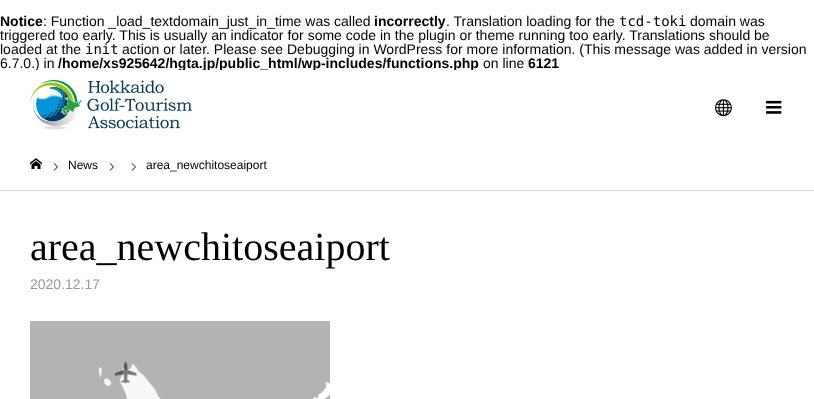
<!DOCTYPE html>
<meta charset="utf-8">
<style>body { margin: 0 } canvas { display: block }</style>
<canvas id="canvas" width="814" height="399"></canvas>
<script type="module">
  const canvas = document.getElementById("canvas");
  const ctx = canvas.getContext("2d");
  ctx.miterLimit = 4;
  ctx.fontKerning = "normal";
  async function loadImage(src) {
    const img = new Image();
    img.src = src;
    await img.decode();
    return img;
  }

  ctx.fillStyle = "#ffffff";
  ctx.fillRect(0, 0, 814, 399);
  ctx.font = "bold 14px Liberation Sans";
  ctx.fillStyle = "#000000";
  ctx.fillText("Notice", 0, 26);
  ctx.font = "14px Liberation Sans";
  ctx.fillText(": Function _load_textdomain_just_in_time was called", 43, 26);
  ctx.font = "bold 14px Liberation Sans";
  ctx.fillText("incorrectly", 374, 26);
  ctx.font = "14px Liberation Sans";
  ctx.fillText(". Translation loading for the", 446, 26);
  ctx.font = "14px DejaVu Sans Mono";
  ctx.fillText("tcd-toki", 619, 26);
  ctx.font = "14px Liberation Sans";
  ctx.fillText("domain was", 690, 26);
  ctx.fillText("triggered too early. This is usually an indicator for some code in the plugin or theme running too early. Translations should be", 0, 40);
  ctx.fillText("loaded at the", 0, 54);
  ctx.font = "14px DejaVu Sans Mono";
  ctx.fillText("init", 85, 54);
  ctx.font = "14px Liberation Sans";
  ctx.fillText("action or later. Please see Debugging in WordPress for more information. (This message was added in version", 122, 54);
  ctx.fillText("6.7.0.) in", 0, 68);
  ctx.font = "bold 14px Liberation Sans";
  ctx.fillText("/home/xs925642/hgta.jp/public_html/wp-includes/functions.php", 58, 68);
  ctx.font = "14px Liberation Sans";
  ctx.fillText("on line", 483, 68);
  ctx.font = "bold 14px Liberation Sans";
  ctx.fillText("6121", 528, 68);
  ctx.fillStyle = "#ffffff";
  ctx.fillRect(35, 70, 439, 1);
  ctx.drawImage(await loadImage("img1.png"), 30, 80, 162, 50);
  ctx.drawImage(await loadImage("img2.png"), 715, 99, 17, 18);
  ctx.drawImage(await loadImage("img3.png"), 766, 100, 16, 14);
  ctx.fillStyle = "#dddddd";
  ctx.fillRect(0, 190, 814, 1);
  ctx.drawImage(await loadImage("img4.png"), 30, 158, 12, 11);
  ctx.drawImage(await loadImage("img5.png"), 53, 163, 5, 8);
  ctx.font = "12px Liberation Sans";
  ctx.fillStyle = "#000000";
  ctx.fillText("News", 68, 169);
  ctx.drawImage(await loadImage("img5.png"), 109, 163, 5, 8);
  ctx.drawImage(await loadImage("img5.png"), 131, 163, 5, 8);
  ctx.fillText("area_newchitoseaiport", 146, 169);
  ctx.font = "40px Liberation Serif";
  ctx.fillText("area_newchitoseaiport", 30, 260);
  ctx.font = "14px Liberation Sans";
  ctx.fillStyle = "#999999";
  ctx.fillText("2020.12.17", 30, 289);
  ctx.drawImage(await loadImage("img6.png"), 30, 321, 300, 78);
</script>
